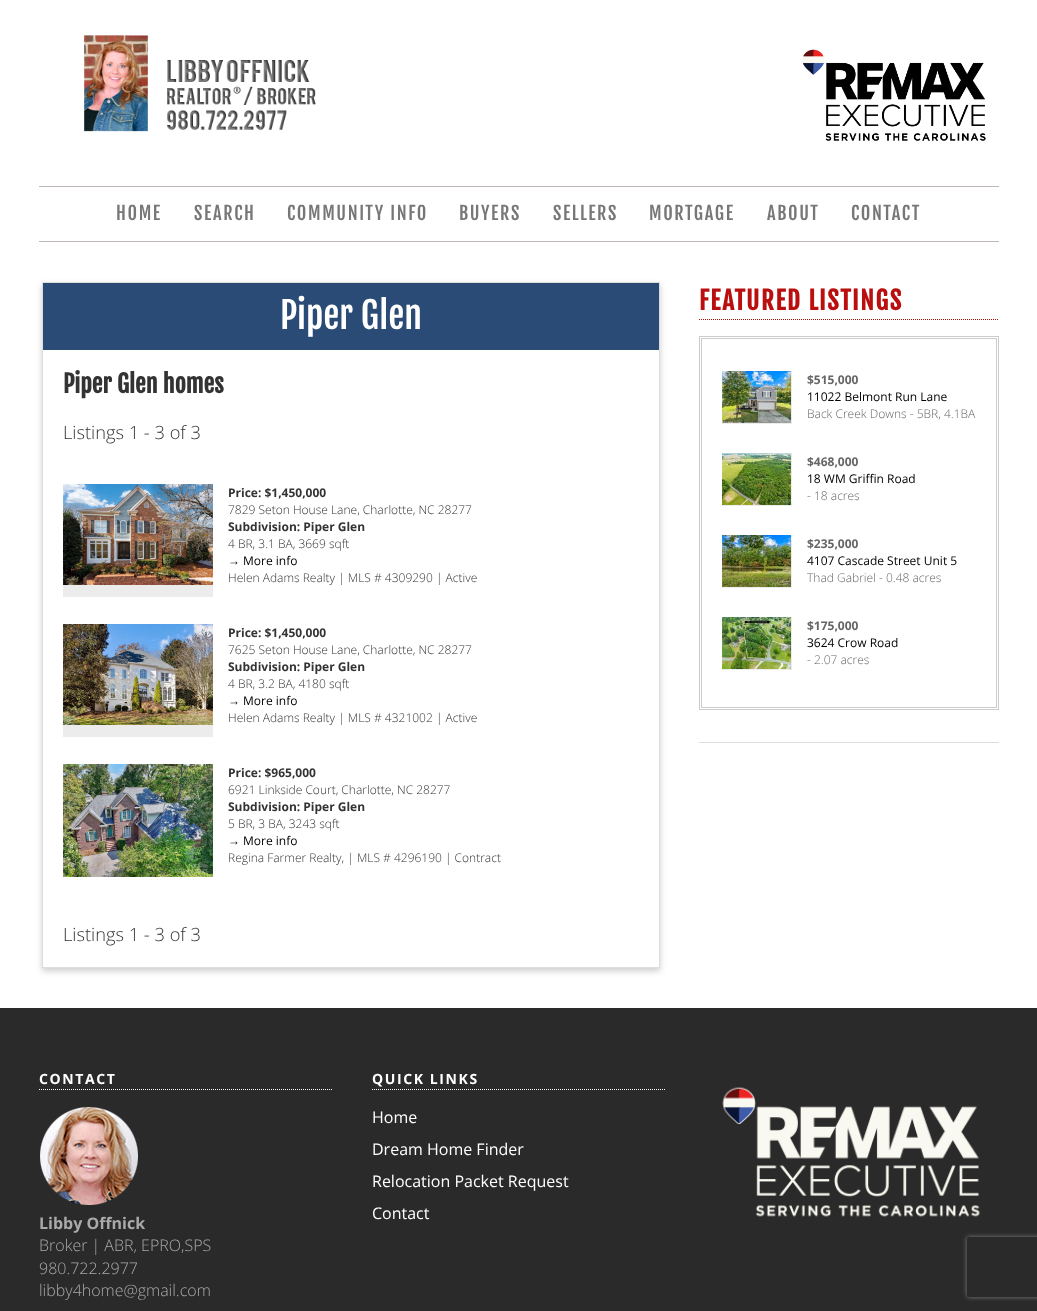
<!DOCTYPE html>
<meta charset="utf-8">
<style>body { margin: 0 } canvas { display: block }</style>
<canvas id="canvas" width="1037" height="1311"></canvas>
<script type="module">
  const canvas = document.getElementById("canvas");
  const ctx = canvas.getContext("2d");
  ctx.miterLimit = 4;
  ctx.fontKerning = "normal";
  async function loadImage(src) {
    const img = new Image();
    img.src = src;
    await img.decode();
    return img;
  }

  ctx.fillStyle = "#ffffff";
  ctx.fillRect(0, 0, 1037, 1311);
  ctx.drawImage(await loadImage("img1.png"), 84, 35, 232, 97);
  ctx.drawImage(await loadImage("img2.png"), 802, 49, 184, 92);
  ctx.fillStyle = "#c0b8b8";
  ctx.fillRect(39, 186, 960, 1);
  ctx.fillRect(39, 241, 960, 1);
  ctx.letterSpacing = "1.6px";
  ctx.font = "18.25px Fjalla One";
  ctx.fillStyle = "#777777";
  ctx.fillText("HOME", 116, 220);
  ctx.fillText("SEARCH", 194, 220);
  ctx.fillText("COMMUNITY INFO", 287, 220);
  ctx.fillText("BUYERS", 459, 220);
  ctx.fillText("SELLERS", 553, 220);
  ctx.fillText("MORTGAGE", 649, 220);
  ctx.fillText("ABOUT", 767, 220);
  ctx.fillText("CONTACT", 851, 220);
  ctx.save();
  ctx.beginPath();
  ctx.moveTo(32, 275);
  ctx.lineTo(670, 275);
  ctx.lineTo(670, 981);
  ctx.lineTo(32, 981);
  ctx.closePath();
  ctx.moveTo(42, 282);
  ctx.lineTo(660, 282);
  ctx.lineTo(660, 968);
  ctx.lineTo(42, 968);
  ctx.closePath();
  ctx.clip("evenodd");
  ctx.fillStyle = "rgba(0, 0, 0, 0.2)";
  ctx.filter = "blur(3px)";
  ctx.beginPath();
  ctx.rect(42, 285, 618, 686);
  ctx.fill();
  ctx.filter = "none";
  ctx.restore();
  ctx.strokeStyle = "#dddddd";
  ctx.strokeRect(42.5, 282.5, 617, 685);
  ctx.fillStyle = "#2a4b75";
  ctx.fillRect(43, 283, 616, 67);
  ctx.letterSpacing = "0px";
  ctx.font = "36px Fjalla One";
  ctx.fillStyle = "#ffffff";
  ctx.fillText("Piper Glen", 280, 329);
  ctx.font = "bold 24px Fjalla One";
  ctx.fillStyle = "#333333";
  ctx.fillText("Piper Glen homes", 63, 393);
  ctx.font = "300 18.25px Open Sans";
  ctx.fillText("Listings 1 - 3 of 3", 63, 439);
  ctx.fillStyle = "#ececec";
  ctx.fillRect(63, 585, 150, 12);
  ctx.drawImage(await loadImage("img3.png"), 63, 484, 150, 101);
  ctx.font = "bold 12px Open Sans";
  ctx.fillStyle = "#333333";
  ctx.fillText("Price: $1,450,000", 228, 497);
  ctx.font = "300 12px Open Sans";
  ctx.fillText("7829 Seton House Lane, Charlotte, NC 28277", 228, 514);
  ctx.font = "bold 12px Open Sans";
  ctx.fillText("Subdivision: Piper Glen", 228, 531);
  ctx.font = "300 12px Open Sans";
  ctx.fillText("4 BR, 3.1 BA, 3669 sqft", 228, 548);
  ctx.font = "12px Liberation Sans";
  ctx.fillStyle = "#000000";
  ctx.fillText("→", 228, 565);
  ctx.font = "12px Open Sans";
  ctx.fillText("More info", 243, 565);
  ctx.font = "300 12px Open Sans";
  ctx.fillStyle = "#333333";
  ctx.fillText("Helen Adams Realty | MLS # 4309290 | Active", 228, 582);
  ctx.fillStyle = "#ececec";
  ctx.fillRect(63, 725, 150, 12);
  ctx.drawImage(await loadImage("img4.png"), 63, 624, 150, 101);
  ctx.font = "bold 12px Open Sans";
  ctx.fillStyle = "#333333";
  ctx.fillText("Price: $1,450,000", 228, 637);
  ctx.font = "300 12px Open Sans";
  ctx.fillText("7625 Seton House Lane, Charlotte, NC 28277", 228, 654);
  ctx.font = "bold 12px Open Sans";
  ctx.fillText("Subdivision: Piper Glen", 228, 671);
  ctx.font = "300 12px Open Sans";
  ctx.fillText("4 BR, 3.2 BA, 4180 sqft", 228, 688);
  ctx.font = "12px Liberation Sans";
  ctx.fillStyle = "#000000";
  ctx.fillText("→", 228, 705);
  ctx.font = "12px Open Sans";
  ctx.fillText("More info", 243, 705);
  ctx.font = "300 12px Open Sans";
  ctx.fillStyle = "#333333";
  ctx.fillText("Helen Adams Realty | MLS # 4321002 | Active", 228, 722);
  ctx.drawImage(await loadImage("img5.png"), 63, 764, 150, 113);
  ctx.font = "bold 12px Open Sans";
  ctx.fillText("Price: $965,000", 228, 777);
  ctx.font = "300 12px Open Sans";
  ctx.fillText("6921 Linkside Court, Charlotte, NC 28277", 228, 794);
  ctx.font = "bold 12px Open Sans";
  ctx.fillText("Subdivision: Piper Glen", 228, 811);
  ctx.font = "300 12px Open Sans";
  ctx.fillText("5 BR, 3 BA, 3243 sqft", 228, 828);
  ctx.font = "12px Liberation Sans";
  ctx.fillStyle = "#000000";
  ctx.fillText("→", 228, 845);
  ctx.font = "12px Open Sans";
  ctx.fillText("More info", 243, 845);
  ctx.font = "300 12px Open Sans";
  ctx.fillStyle = "#333333";
  ctx.fillText("Regina Farmer Realty, | MLS # 4296190 | Contract", 228, 862);
  ctx.font = "300 18.25px Open Sans";
  ctx.fillText("Listings 1 - 3 of 3", 63, 941);
  ctx.fillStyle = "#dddddd";
  ctx.fillRect(699, 742, 300, 1);
  ctx.beginPath();
  ctx.moveTo(699, 319.5);
  ctx.lineTo(999, 319.5);
  ctx.strokeStyle = "#bb0f0f";
  ctx.setLineDash([1, 1]);
  ctx.stroke();
  ctx.letterSpacing = "1.6px";
  ctx.font = "bold 25px Fjalla One";
  ctx.fillStyle = "#bb0f0f";
  ctx.fillText("FEATURED LISTINGS", 699, 310);
  ctx.strokeStyle = "#cccccc";
  ctx.setLineDash([]);
  ctx.strokeRect(699.5, 336.5, 299, 373);
  ctx.strokeRect(701.5, 338.5, 295, 369);
  ctx.fillStyle = "#ececec";
  ctx.fillRect(722, 371, 70, 53);
  ctx.drawImage(await loadImage("img6.png"), 722, 371, 69, 52);
  ctx.letterSpacing = "0px";
  ctx.font = "bold 12px Open Sans";
  ctx.fillStyle = "#666666";
  ctx.fillText("$515,000", 807, 384);
  ctx.font = "12px Open Sans";
  ctx.fillStyle = "#000000";
  ctx.fillText("11022 Belmont Run Lane", 807, 401);
  ctx.font = "300 12px Open Sans";
  ctx.fillStyle = "#666666";
  ctx.fillText("Back Creek Downs - 5BR, 4.1BA", 807, 418);
  ctx.fillStyle = "#ececec";
  ctx.fillRect(722, 453, 70, 53);
  ctx.drawImage(await loadImage("img7.png"), 722, 453, 69, 52);
  ctx.font = "bold 12px Open Sans";
  ctx.fillStyle = "#666666";
  ctx.fillText("$468,000", 807, 466);
  ctx.font = "12px Open Sans";
  ctx.fillStyle = "#000000";
  ctx.fillText("18 WM Griffin Road", 807, 483);
  ctx.font = "300 12px Open Sans";
  ctx.fillStyle = "#666666";
  ctx.fillText("- 18 acres", 807, 500);
  ctx.fillStyle = "#ececec";
  ctx.fillRect(722, 535, 70, 53);
  ctx.drawImage(await loadImage("img8.png"), 722, 535, 69, 52);
  ctx.font = "bold 12px Open Sans";
  ctx.fillStyle = "#666666";
  ctx.fillText("$235,000", 807, 548);
  ctx.font = "12px Open Sans";
  ctx.fillStyle = "#000000";
  ctx.fillText("4107 Cascade Street Unit 5", 807, 565);
  ctx.font = "300 12px Open Sans";
  ctx.fillStyle = "#666666";
  ctx.fillText("Thad Gabriel - 0.48 acres", 807, 582);
  ctx.fillStyle = "#ececec";
  ctx.fillRect(722, 617, 70, 53);
  ctx.drawImage(await loadImage("img9.png"), 722, 617, 69, 52);
  ctx.font = "bold 12px Open Sans";
  ctx.fillStyle = "#666666";
  ctx.fillText("$175,000", 807, 630);
  ctx.font = "12px Open Sans";
  ctx.fillStyle = "#000000";
  ctx.fillText("3624 Crow Road", 807, 647);
  ctx.font = "300 12px Open Sans";
  ctx.fillStyle = "#666666";
  ctx.fillText("- 2.07 acres", 807, 664);
  ctx.fillStyle = "#2a2a2a";
  ctx.fillRect(0, 1008, 1037, 303);
  ctx.beginPath();
  ctx.moveTo(39, 1089.5);
  ctx.lineTo(332, 1089.5);
  ctx.strokeStyle = "#ffffff";
  ctx.setLineDash([1, 1]);
  ctx.stroke();
  ctx.letterSpacing = "1.6px";
  ctx.font = "bold 14px Open Sans";
  ctx.fillStyle = "#ffffff";
  ctx.fillText("CONTACT", 39, 1084);
  ctx.drawImage(await loadImage("img10.png"), 40, 1107, 98, 98);
  ctx.letterSpacing = "0px";
  ctx.font = "bold 16px Open Sans";
  ctx.fillStyle = "#aaaaaa";
  ctx.fillText("Libby Offnick", 39, 1229);
  ctx.font = "300 16px Open Sans";
  ctx.fillText("Broker | ABR, EPRO,SPS", 39, 1251);
  ctx.fillText("980.722.2977", 39, 1274);
  ctx.fillText("libby4home@gmail.com", 39, 1296);
  ctx.beginPath();
  ctx.moveTo(372, 1089.5);
  ctx.lineTo(665, 1089.5);
  ctx.stroke();
  ctx.letterSpacing = "1.6px";
  ctx.font = "bold 14px Open Sans";
  ctx.fillStyle = "#ffffff";
  ctx.fillText("QUICK LINKS", 372, 1084);
  ctx.letterSpacing = "0px";
  ctx.font = "16px Open Sans";
  ctx.fillText("Home", 372, 1123);
  ctx.fillText("Dream Home Finder", 372, 1155);
  ctx.fillText("Relocation Packet Request", 372, 1187);
  ctx.fillText("Contact", 372, 1219);
  ctx.drawImage(await loadImage("img11.png"), 722, 1087, 258, 130);
  ctx.save();
  ctx.beginPath();
  ctx.moveTo(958, 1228);
  ctx.lineTo(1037, 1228);
  ctx.lineTo(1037, 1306);
  ctx.lineTo(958, 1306);
  ctx.closePath();
  ctx.moveTo(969, 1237);
  ctx.lineTo(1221, 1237);
  ctx.bezierCurveTo(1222, 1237, 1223, 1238, 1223, 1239);
  ctx.lineTo(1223, 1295);
  ctx.bezierCurveTo(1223, 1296, 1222, 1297, 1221, 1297);
  ctx.lineTo(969, 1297);
  ctx.bezierCurveTo(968, 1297, 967, 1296, 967, 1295);
  ctx.lineTo(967, 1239);
  ctx.bezierCurveTo(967, 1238, 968, 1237, 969, 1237);
  ctx.closePath();
  ctx.clip("evenodd");
  ctx.fillStyle = "#808080";
  ctx.filter = "blur(2.5px)";
  ctx.beginPath();
  ctx.roundRect(967, 1237, 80, 60, 2);
  ctx.fill();
  ctx.filter = "none";
  ctx.restore();
</script>
